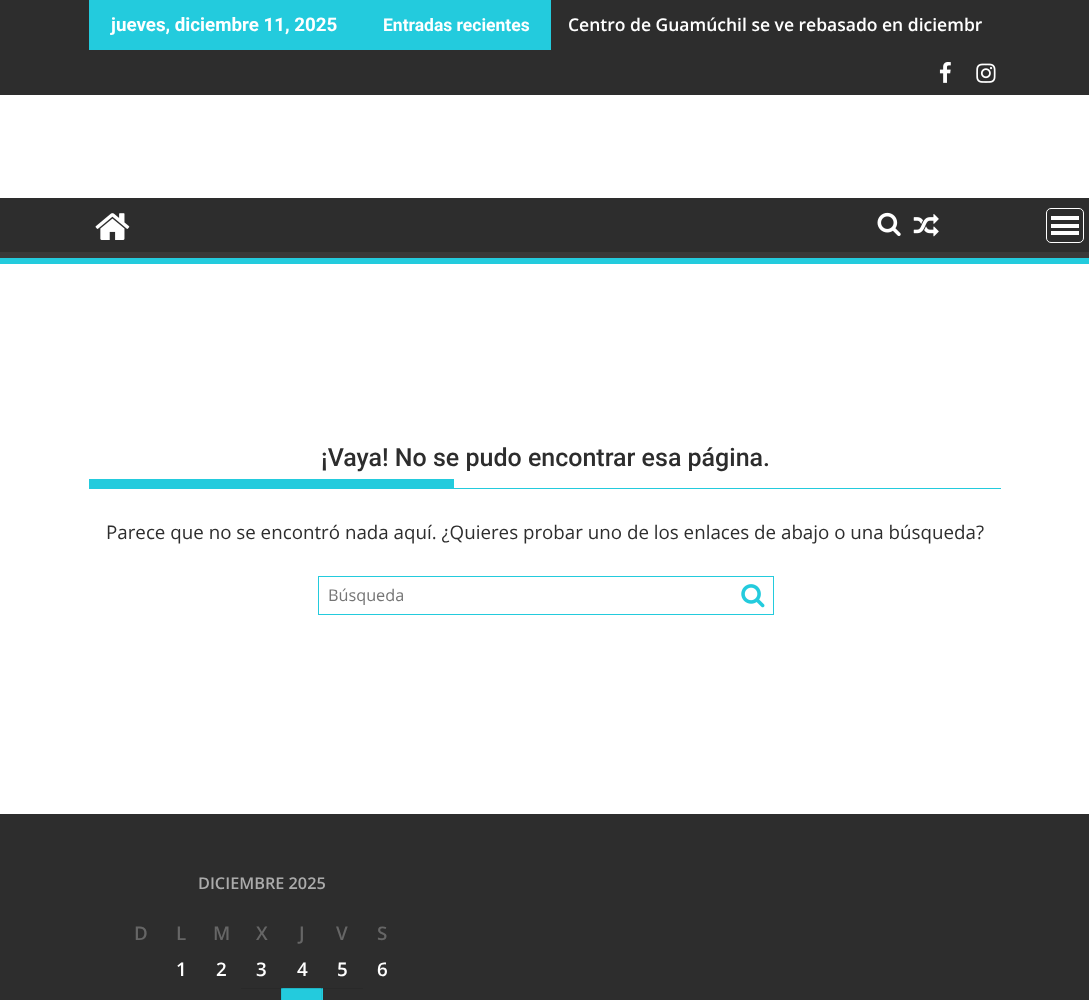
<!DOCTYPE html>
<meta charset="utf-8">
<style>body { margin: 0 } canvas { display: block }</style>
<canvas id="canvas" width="1089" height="1000"></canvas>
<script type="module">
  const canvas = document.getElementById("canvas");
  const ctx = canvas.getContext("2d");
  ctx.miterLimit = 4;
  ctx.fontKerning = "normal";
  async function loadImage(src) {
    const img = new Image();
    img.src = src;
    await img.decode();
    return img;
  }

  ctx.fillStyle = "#ffffff";
  ctx.fillRect(0, 0, 1089, 1000);
  ctx.fillStyle = "#2d2d2d";
  ctx.fillRect(0, 0, 1089, 95);
  ctx.fillStyle = "#23cbdd";
  ctx.fillRect(89, 0, 462, 50);
  ctx.font = "bold 18.75px Roboto";
  ctx.fillStyle = "#ffffff";
  ctx.fillText("jueves, diciembre 11, 2025", 111, 31);
  ctx.font = "bold 17.5px Roboto";
  ctx.fillText("Entradas recientes", 383, 31);
  ctx.font = "600 17.5px Open Sans";
  ctx.fillText("Centro de Guamúchil se ve rebasado en diciembr", 568, 31);
  ctx.drawImage(await loadImage("img1.png"), 939, 62, 12, 21);
  ctx.drawImage(await loadImage("img2.png"), 976, 63, 20, 20);
  ctx.fillStyle = "#2d2d2d";
  ctx.fillRect(0, 198, 1089, 54);
  ctx.save();
  ctx.beginPath();
  ctx.rect(0, 198, 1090, 60);
  ctx.clip();
  ctx.fillStyle = "#393939";
  ctx.beginPath();
  ctx.moveTo(-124, 74);
  ctx.lineTo(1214, 74);
  ctx.lineTo(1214, 381);
  ctx.lineTo(-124, 381);
  ctx.closePath();
  ctx.moveTo(-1, 190);
  ctx.lineTo(1089, 190);
  ctx.bezierCurveTo(1089, 190, 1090, 191, 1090, 191);
  ctx.lineTo(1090, 251);
  ctx.bezierCurveTo(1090, 252, 1089, 252, 1089, 252);
  ctx.lineTo(-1, 252);
  ctx.bezierCurveTo(-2, 252, -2, 252, -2, 251);
  ctx.lineTo(-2, 191);
  ctx.bezierCurveTo(-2, 191, -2, 190, -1, 190);
  ctx.closePath();
  ctx.fill("evenodd");
  ctx.restore();
  ctx.fillStyle = "#23cbdd";
  ctx.fillRect(0, 258, 1089, 6);
  ctx.drawImage(await loadImage("img3.png"), 95, 213, 35, 27);
  ctx.drawImage(await loadImage("img4.png"), 877, 212, 24, 24);
  ctx.drawImage(await loadImage("img5.png"), 913, 214, 26, 23);
  ctx.beginPath();
  ctx.roundRect(1046.5, 208.5, 37, 34, 4.5);
  ctx.strokeStyle = "#ffffff";
  ctx.stroke();
  ctx.fillStyle = "#ffffff";
  ctx.fillRect(1051, 231, 28, 4);
  ctx.fillRect(1051, 224, 28, 4);
  ctx.fillRect(1051, 216, 28, 4);
  ctx.fillStyle = "#23cbdd";
  ctx.fillRect(89, 488, 912, 1);
  ctx.font = "500 25px Roboto";
  ctx.fillStyle = "#2d2d2d";
  ctx.fillText("¡Vaya! No se pudo encontrar esa página.", 321, 466);
  ctx.fillStyle = "#23cbdd";
  ctx.fillRect(89, 479, 365, 9);
  ctx.font = "18.75px Open Sans";
  ctx.fillStyle = "#2d2d2d";
  ctx.fillText("Parece que no se encontró nada aquí. ¿Quieres probar uno de los enlaces de abajo o una búsqueda?", 106, 539);
  ctx.strokeStyle = "#23cbdd";
  ctx.strokeRect(318.5, 576.5, 455, 38);
  ctx.font = "16.25px Open Sans";
  ctx.fillStyle = "#757575";
  ctx.fillText("Búsqueda", 328, 601);
  ctx.drawImage(await loadImage("img6.png"), 741, 584, 24, 24);
  ctx.fillStyle = "#2d2d2d";
  ctx.fillRect(0, 814, 1089, 186);
  ctx.fillStyle = "#292929";
  ctx.fillRect(241, 988, 42, 1);
  ctx.fillRect(321, 988, 42, 1);
  ctx.font = "600 16.25px Open Sans";
  ctx.fillStyle = "#ababab";
  ctx.fillText("DICIEMBRE 2025", 198, 889);
  ctx.font = "600 18.75px Open Sans";
  ctx.fillStyle = "#666666";
  ctx.fillText("D", 134, 940);
  ctx.fillText("L", 176, 940);
  ctx.fillText("M", 213, 940);
  ctx.fillText("X", 256, 940);
  ctx.fillText("J", 299, 940);
  ctx.fillText("V", 336, 940);
  ctx.fillText("S", 377, 940);
  ctx.fillStyle = "#ffffff";
  ctx.fillText("1", 176, 976);
  ctx.fillText("2", 216, 976);
  ctx.fillText("3", 256, 976);
  ctx.fillText("4", 297, 976);
  ctx.fillText("5", 337, 976);
  ctx.fillText("6", 377, 976);
  ctx.fillStyle = "#23cbdd";
  ctx.fillRect(282, 989, 41, 11);
  ctx.fillStyle = "#21bfd0";
  ctx.fillRect(281, 988, 1, 12);
  ctx.fillRect(321, 988, 1, 12);
  ctx.fillStyle = "#1fb3c4";
  ctx.fillRect(281, 988, 42, 1);
  ctx.fillStyle = "#1da9b8";
  ctx.fillRect(281, 988, 2, 1);
  ctx.fillStyle = "#1995a3";
  ctx.fillRect(281, 988, 1, 1);
  ctx.fillStyle = "#1da9b8";
  ctx.fillRect(321, 988, 2, 1);
  ctx.fillStyle = "#1995a3";
  ctx.fillRect(321, 988, 1, 1);
</script>
